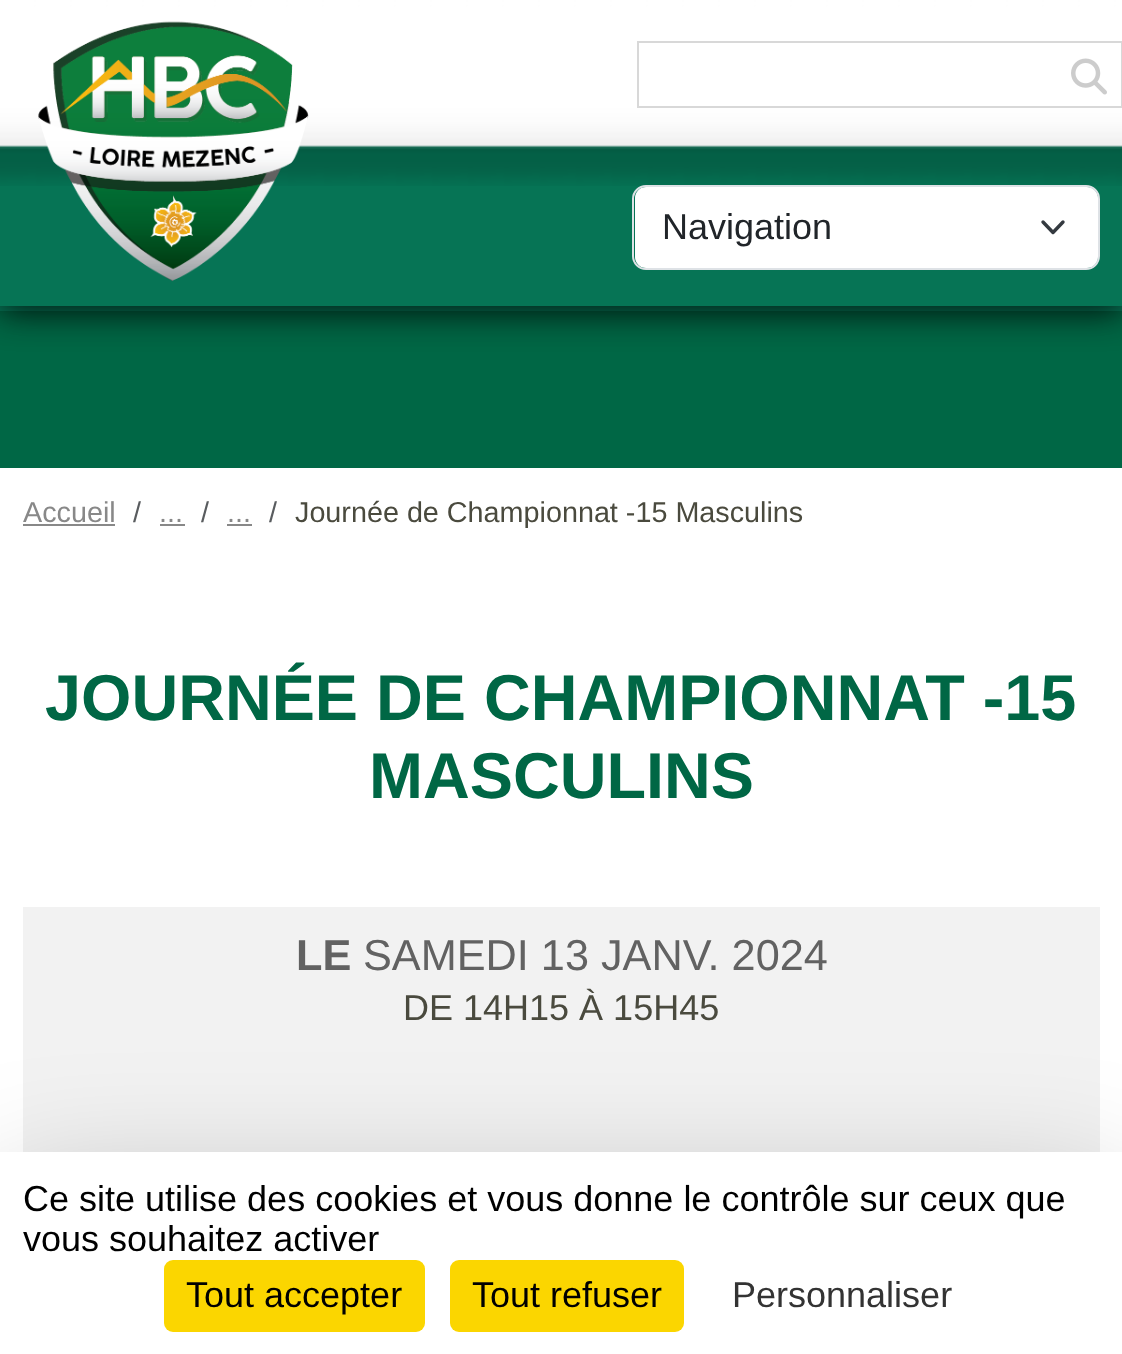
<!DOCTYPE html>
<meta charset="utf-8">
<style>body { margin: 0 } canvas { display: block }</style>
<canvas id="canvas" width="1122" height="1354"></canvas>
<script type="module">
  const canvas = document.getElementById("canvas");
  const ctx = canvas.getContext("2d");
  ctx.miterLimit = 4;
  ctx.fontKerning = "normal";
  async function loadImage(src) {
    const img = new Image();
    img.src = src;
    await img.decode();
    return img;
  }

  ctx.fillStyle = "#006745";
  ctx.fillRect(0, 0, 1122, 1354);
  ctx.fillStyle = "#000000";
  ctx.filter = "blur(17px)";
  ctx.beginPath();
  ctx.rect(0, 306, 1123, 5);
  ctx.fill();
  ctx.filter = "none";
  ctx.fillStyle = "#067455";
  ctx.fillRect(0, 306, 1122, 5);
  ctx.fillStyle = "#000000";
  ctx.filter = "blur(17px)";
  ctx.beginPath();
  ctx.rect(0, 0, 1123, 306);
  ctx.fill();
  ctx.filter = "none";
  ctx.fillStyle = "#067455";
  ctx.fillRect(0, 145, 1122, 161);
  ctx.drawImage(await loadImage("img1.png"), 0, 0, 1122, 186);
  ctx.drawImage(await loadImage("img2.png"), 38, 21, 271, 261);
  ctx.strokeStyle = "#d8d8d8";
  ctx.lineWidth = 2;
  ctx.strokeRect(638, 42, 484, 65);
  ctx.drawImage(await loadImage("img3.png"), 1071, 58, 36, 37);
  ctx.fillStyle = "#ffffff";
  ctx.beginPath();
  ctx.roundRect(635, 187, 463, 81, 11);
  ctx.fill();
  ctx.beginPath();
  ctx.moveTo(1043, 222);
  ctx.lineTo(1053, 232.5);
  ctx.lineTo(1063, 222);
  ctx.strokeStyle = "#343a40";
  ctx.lineWidth = 3.4;
  ctx.lineCap = "round";
  ctx.lineJoin = "round";
  ctx.stroke();
  ctx.beginPath();
  ctx.roundRect(633, 186, 466, 83, 13);
  ctx.strokeStyle = "#dee2e6";
  ctx.lineWidth = 2;
  ctx.lineJoin = "miter";
  ctx.stroke();
  ctx.font = "36px Liberation Sans";
  ctx.fillStyle = "#212529";
  ctx.fillText("Navigation", 662, 239);
  ctx.fillStyle = "#ffffff";
  ctx.fillRect(0, 468, 1122, 684);
  ctx.font = "28.75px Liberation Sans";
  ctx.fillStyle = "#888888";
  ctx.fillText("Accueil", 23, 522);
  ctx.fillRect(23, 524, 92, 2);
  ctx.fillStyle = "#595c5f";
  ctx.fillText("/", 133, 522);
  ctx.fillStyle = "#888888";
  ctx.fillText("...", 159, 522);
  ctx.fillRect(160, 524, 25, 2);
  ctx.fillStyle = "#595c5f";
  ctx.fillText("/", 201, 522);
  ctx.fillStyle = "#888888";
  ctx.fillText("...", 227, 522);
  ctx.fillRect(227, 524, 25, 2);
  ctx.fillStyle = "#595c5f";
  ctx.fillText("/", 269, 522);
  ctx.fillStyle = "#4a4a3e";
  ctx.fillText("Journée de Championnat -15 Masculins", 295, 522);
  ctx.font = "bold 64.75px Liberation Sans";
  ctx.fillStyle = "#006745";
  ctx.fillText("JOURNÉE DE CHAMPIONNAT -15", 45, 720);
  ctx.fillText("MASCULINS", 369, 798);
  ctx.fillStyle = "#f2f2f2";
  ctx.fillRect(23, 907, 1077, 245);
  ctx.font = "bold 43.25px Liberation Sans";
  ctx.fillStyle = "#626262";
  ctx.fillText("LE", 296, 970);
  ctx.font = "43.25px Liberation Sans";
  ctx.fillText("SAMEDI 13 JANV. 2024", 363, 970);
  ctx.font = "36px Liberation Sans";
  ctx.fillStyle = "#4a4a3e";
  ctx.fillText("DE 14H15 À 15H45", 403, 1020);
  ctx.fillStyle = "rgba(0, 0, 0, 0.25)";
  ctx.filter = "blur(67.5px)";
  ctx.beginPath();
  ctx.rect(0, 1197, 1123, 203);
  ctx.fill();
  ctx.filter = "none";
  ctx.fillStyle = "#ffffff";
  ctx.fillRect(0, 1152, 1122, 202);
  ctx.fillStyle = "#000000";
  ctx.fillText("Ce site utilise des cookies et vous donne le contrôle sur ceux que", 23, 1211);
  ctx.fillText("vous souhaitez activer", 23, 1251);
  ctx.fillStyle = "#fbd600";
  ctx.beginPath();
  ctx.roundRect(164, 1260, 261, 72, 9);
  ctx.fill();
  ctx.fillStyle = "#000000";
  ctx.fillText("Tout accepter", 186, 1307);
  ctx.fillStyle = "#fbd600";
  ctx.beginPath();
  ctx.roundRect(450, 1260, 234, 72, 9);
  ctx.fill();
  ctx.fillStyle = "#000000";
  ctx.fillText("Tout refuser", 472, 1307);
  ctx.fillStyle = "#333333";
  ctx.fillText("Personnaliser", 732, 1307);
</script>
